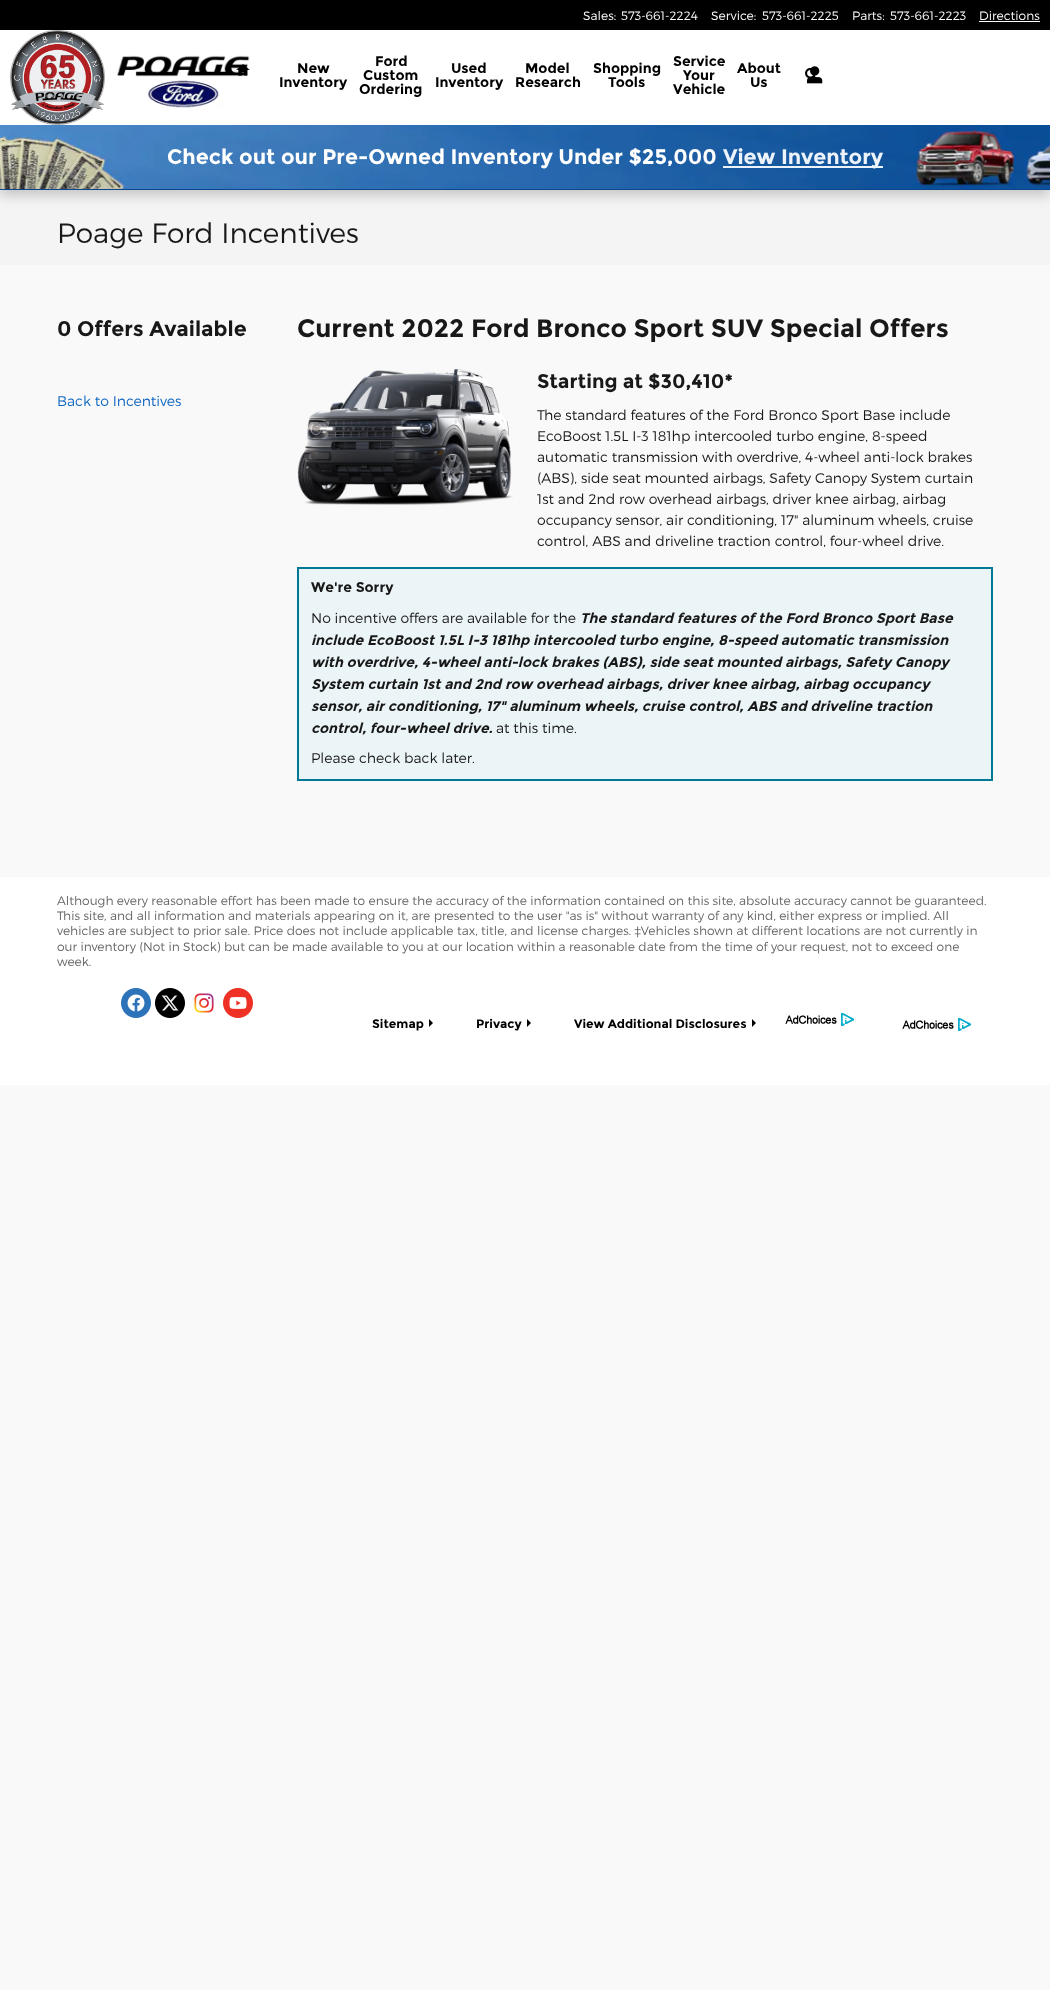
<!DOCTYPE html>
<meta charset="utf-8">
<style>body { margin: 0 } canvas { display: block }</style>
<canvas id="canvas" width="1050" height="1990"></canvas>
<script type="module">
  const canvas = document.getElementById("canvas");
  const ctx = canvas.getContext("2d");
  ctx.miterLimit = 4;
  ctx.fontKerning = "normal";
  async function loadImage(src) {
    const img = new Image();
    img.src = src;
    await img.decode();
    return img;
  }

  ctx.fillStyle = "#f9f9fa";
  ctx.fillRect(0, 0, 1050, 1990);
  ctx.fillStyle = "#f4f4f4";
  ctx.fillRect(0, 190, 1050, 75);
  ctx.fillStyle = "rgba(0, 0, 0, 0.18)";
  ctx.filter = "blur(6px)";
  ctx.beginPath();
  ctx.rect(0, 6, 1050, 190);
  ctx.fill();
  ctx.filter = "none";
  ctx.fillStyle = "#ffffff";
  ctx.fillRect(0, 30, 1050, 95);
  ctx.fillStyle = "#0a468d";
  ctx.fillRect(0, 189, 1050, 1);
  ctx.fillStyle = "#000000";
  ctx.fillRect(0, 0, 1050, 30);
  ctx.font = "300 12.25px Montserrat";
  ctx.fillStyle = "#ffffff";
  ctx.fillText("Sales:", 583, 20);
  ctx.fillText("573-661-2224", 621, 20);
  ctx.fillText("Service:", 711, 20);
  ctx.fillText("573-661-2225", 762, 20);
  ctx.fillText("Parts:", 852, 20);
  ctx.fillText("573-661-2223", 890, 20);
  ctx.fillText("Directions", 979, 20);
  ctx.fillRect(979, 21, 61, 1);
  ctx.drawImage(await loadImage("img1.png"), 10, 30, 95, 95);
  ctx.drawImage(await loadImage("img2.png"), 117, 55, 133, 54);
  ctx.drawImage(await loadImage("img3.png"), 236, 64, 14, 12);
  ctx.font = "bold 14px Montserrat";
  ctx.fillStyle = "#000000";
  ctx.fillText("New", 297, 73);
  ctx.fillText("Inventory", 279, 87);
  ctx.fillText("Ford", 375, 66);
  ctx.fillText("Custom", 363, 80);
  ctx.fillText("Ordering", 359, 94);
  ctx.fillText("Used", 451, 73);
  ctx.fillText("Inventory", 435, 87);
  ctx.fillText("Model", 525, 73);
  ctx.fillText("Research", 515, 87);
  ctx.fillText("Shopping", 593, 73);
  ctx.fillText("Tools", 608, 87);
  ctx.fillText("Service", 673, 66);
  ctx.fillText("Your", 683, 80);
  ctx.fillText("Vehicle", 673, 94);
  ctx.fillText("About", 737, 73);
  ctx.fillText("Us", 750, 87);
  ctx.drawImage(await loadImage("img4.png"), 805, 67, 12, 12);
  ctx.drawImage(await loadImage("img5.png"), 806, 66, 17, 18);
  ctx.drawImage(await loadImage("img6.png"), 0, 125, 1050, 64);
  ctx.font = "bold 21px Montserrat";
  ctx.fillStyle = "#ffffff";
  ctx.fillText("Check out our Pre-Owned Inventory Under $25,000", 167, 164);
  ctx.fillStyle = "#ecf3fa";
  ctx.fillRect(723, 166, 160, 2);
  ctx.fillText("View Inventory", 723, 164);
  ctx.font = "300 28px Montserrat";
  ctx.fillStyle = "#181818";
  ctx.fillText("Poage Ford Incentives", 57, 243);
  ctx.font = "bold 21px Montserrat";
  ctx.fillText("0 Offers Available", 57, 336);
  ctx.font = "300 14px Montserrat";
  ctx.fillStyle = "#0d65bf";
  ctx.fillText("Back to Incentives", 57, 406);
  ctx.font = "bold 25.2px Montserrat";
  ctx.fillStyle = "#181818";
  ctx.fillText("Current 2022 Ford Bronco Sport SUV Special Offers", 297, 337);
  ctx.drawImage(await loadImage("img7.png"), 297, 369, 216, 136);
  ctx.font = "bold 19.6px Montserrat";
  ctx.fillText("Starting at $30,410*", 537, 388);
  ctx.font = "300 14px Montserrat";
  ctx.fillText("The standard features of the Ford Bronco Sport Base include", 537, 420);
  ctx.fillText("EcoBoost 1.5L I-3 181hp intercooled turbo engine, 8-speed", 537, 441);
  ctx.fillText("automatic transmission with overdrive, 4-wheel anti-lock brakes", 537, 462);
  ctx.fillText("(ABS), side seat mounted airbags, Safety Canopy System curtain", 537, 483);
  ctx.fillText("1st and 2nd row overhead airbags, driver knee airbag, airbag", 537, 504);
  ctx.fillText("occupancy sensor, air conditioning, 17\" aluminum wheels, cruise", 537, 525);
  ctx.fillText("control, ABS and driveline traction control, four-wheel drive.", 537, 546);
  ctx.fillStyle = "#ebf4f7";
  ctx.beginPath();
  ctx.rect(298, 568, 694, 212);
  ctx.fill();
  ctx.strokeStyle = "#007896";
  ctx.lineWidth = 2;
  ctx.stroke();
  ctx.font = "bold 14px Montserrat";
  ctx.fillStyle = "#181818";
  ctx.fillText("We're Sorry", 311, 592);
  ctx.font = "300 14px Montserrat";
  ctx.fillText("No incentive offers are available for the", 311, 623);
  ctx.font = "italic bold 14px Montserrat";
  ctx.fillText("The standard features of the Ford Bronco Sport Base", 580, 623);
  ctx.fillText("include EcoBoost 1.5L I-3 181hp intercooled turbo engine, 8-speed automatic transmission", 311, 645);
  ctx.fillText("with overdrive, 4-wheel anti-lock brakes (ABS), side seat mounted airbags, Safety Canopy", 311, 667);
  ctx.fillText("System curtain 1st and 2nd row overhead airbags, driver knee airbag, airbag occupancy", 311, 689);
  ctx.fillText("sensor, air conditioning, 17\" aluminum wheels, cruise control, ABS and driveline traction", 311, 711);
  ctx.fillText("control, four-wheel drive.", 311, 733);
  ctx.font = "300 14px Montserrat";
  ctx.fillText("at this time.", 496, 733);
  ctx.fillText("Please check back later.", 311, 763);
  ctx.fillStyle = "#ffffff";
  ctx.fillRect(0, 877, 1050, 208);
  ctx.font = "300 12.25px Montserrat";
  ctx.fillStyle = "#666666";
  ctx.fillText("Although every reasonable effort has been made to ensure the accuracy of the information contained on this site, absolute accuracy cannot be guaranteed.", 57, 905);
  ctx.fillText("This site, and all information and materials appearing on it, are presented to the user \"as is\" without warranty of any kind, either express or implied. All", 57, 920);
  ctx.fillText("vehicles are subject to prior sale. Price does not include applicable tax, title, and license charges. ‡Vehicles shown at different locations are not currently in", 57, 935);
  ctx.fillText("our inventory (Not in Stock) but can be made available to you at our location within a reasonable date from the time of your request, not to exceed one", 57, 951);
  ctx.fillText("week.", 57, 966);
  ctx.drawImage(await loadImage("img8.png"), 121, 988, 30, 30);
  ctx.drawImage(await loadImage("img9.png"), 155, 988, 30, 30);
  ctx.drawImage(await loadImage("img10.png"), 194, 993, 20, 20);
  ctx.drawImage(await loadImage("img11.png"), 223, 988, 30, 30);
  ctx.font = "bold 12.25px Montserrat";
  ctx.fillStyle = "#000000";
  ctx.fillText("Sitemap", 372, 1028);
  ctx.beginPath();
  ctx.moveTo(429, 1019);
  ctx.lineTo(429, 1027);
  ctx.lineTo(433, 1023);
  ctx.closePath();
  ctx.fill();
  ctx.fillText("Privacy", 476, 1028);
  ctx.beginPath();
  ctx.moveTo(527, 1019);
  ctx.lineTo(527, 1027);
  ctx.lineTo(531, 1023);
  ctx.closePath();
  ctx.fill();
  ctx.fillText("View Additional Disclosures", 574, 1028);
  ctx.beginPath();
  ctx.moveTo(752, 1019);
  ctx.lineTo(752, 1027);
  ctx.lineTo(756, 1023);
  ctx.closePath();
  ctx.fill();
  ctx.drawImage(await loadImage("img12.png"), 785, 1013, 69, 13);
  ctx.drawImage(await loadImage("img12.png"), 902, 1018, 69, 13);
</script>
